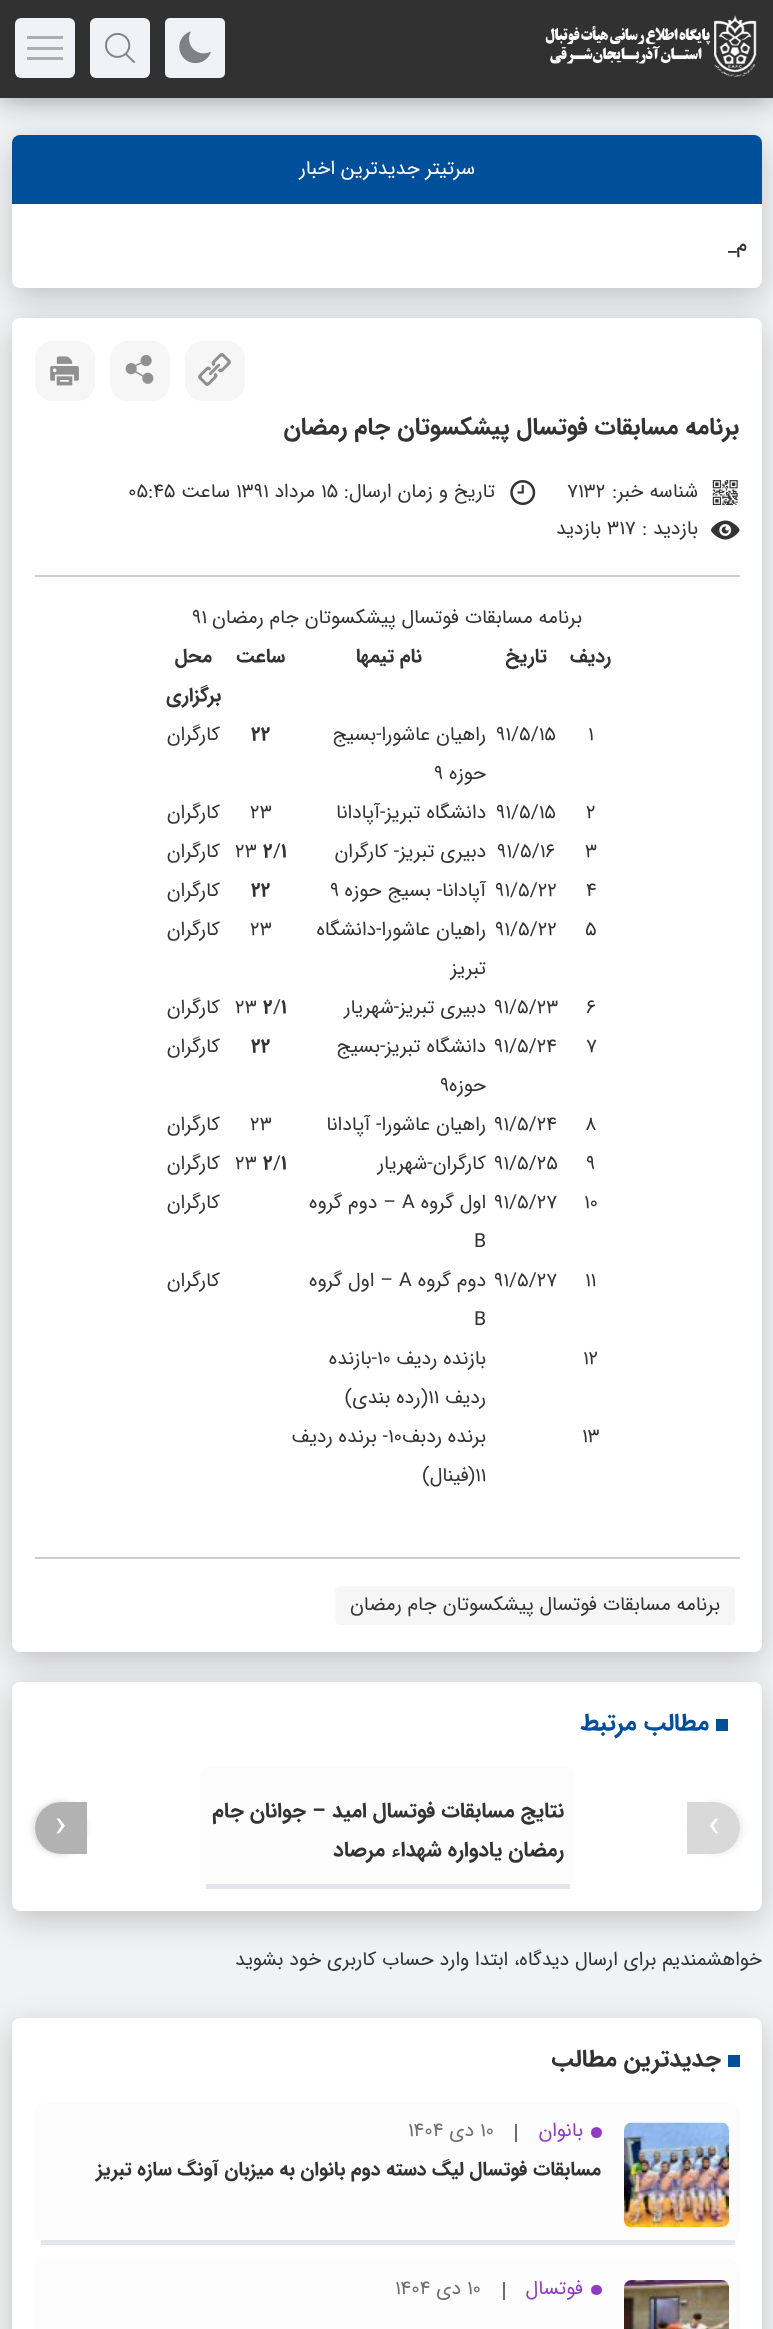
<!DOCTYPE html>
<meta charset="utf-8">
<style>body { margin: 0 } canvas { display: block }</style>
<canvas id="canvas" width="773" height="2329"></canvas>
<script type="module">
  const canvas = document.getElementById("canvas");
  const ctx = canvas.getContext("2d");
  ctx.miterLimit = 4;
  ctx.fontKerning = "normal";
  async function loadImage(src) {
    const img = new Image();
    img.src = src;
    await img.decode();
    return img;
  }

  ctx.fillStyle = "#f1f2f4";
  ctx.fillRect(0, 0, 773, 2329);
  ctx.fillStyle = "rgba(11, 11, 11, 0.2)";
  ctx.filter = "blur(15px)";
  ctx.beginPath();
  ctx.roundRect(12, 144, 750, 153, 8);
  ctx.fill();
  ctx.filter = "none";
  ctx.fillStyle = "#ffffff";
  ctx.beginPath();
  ctx.roundRect(12, 135, 750, 153, 8);
  ctx.fill();
  ctx.fillStyle = "#004f9a";
  ctx.beginPath();
  ctx.roundRect(12, 135, 750, 69, [8, 8, 0, 0]);
  ctx.fill();
  ctx.fillStyle = "rgba(0, 0, 0, 0.4)";
  ctx.filter = "blur(15px)";
  ctx.beginPath();
  ctx.rect(0, 0, 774, 98);
  ctx.fill();
  ctx.filter = "none";
  ctx.fillStyle = "#313131";
  ctx.fillRect(0, 0, 773, 98);
  ctx.drawImage(await loadImage("img1.png"), 545, 15, 212, 62);
  ctx.fillStyle = "#f0f2f7";
  ctx.beginPath();
  ctx.roundRect(165, 18, 60, 60, 5);
  ctx.fill();
  ctx.drawImage(await loadImage("img2.png"), 179, 31, 32, 33);
  ctx.beginPath();
  ctx.roundRect(90, 18, 60, 60, 6);
  ctx.fill();
  ctx.drawImage(await loadImage("img3.png"), 105, 33, 30, 30);
  ctx.beginPath();
  ctx.roundRect(15, 18, 60, 60, 6);
  ctx.fill();
  ctx.fillStyle = "#afafaf";
  ctx.fillRect(27, 47, 36, 3);
  ctx.fillRect(27, 36, 36, 3);
  ctx.fillRect(27, 57, 36, 3);
  ctx.direction = "rtl";
  ctx.font = "19.5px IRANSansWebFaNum";
  ctx.fillStyle = "#ffffff";
  ctx.fillText("سرتیتر جدیدترین اخبار", 475, 174);
  ctx.font = "500 19.5px IRANSansWebFaNum";
  ctx.fillStyle = "#333333";
  ctx.fillText("م", 747, 251);
  ctx.direction = "ltr";
  ctx.fillText("_", 728, 251);
  ctx.fillStyle = "rgba(11, 11, 11, 0.2)";
  ctx.filter = "blur(15px)";
  ctx.beginPath();
  ctx.roundRect(12, 327, 750, 1334, 8);
  ctx.fill();
  ctx.filter = "none";
  ctx.fillStyle = "#ffffff";
  ctx.beginPath();
  ctx.roundRect(12, 318, 750, 1334, 8);
  ctx.fill();
  ctx.fillStyle = "#cecece";
  ctx.fillRect(35, 575, 705, 2);
  ctx.fillStyle = "#f6f6f6";
  ctx.beginPath();
  ctx.roundRect(185, 341, 60, 60, 18);
  ctx.fill();
  ctx.drawImage(await loadImage("img4.png"), 198, 353, 33, 33);
  ctx.beginPath();
  ctx.roundRect(110, 341, 60, 60, 18);
  ctx.fill();
  ctx.drawImage(await loadImage("img5.png"), 125, 355, 29, 29);
  ctx.beginPath();
  ctx.roundRect(35, 341, 60, 60, 18);
  ctx.fill();
  ctx.drawImage(await loadImage("img6.png"), 50, 356, 29, 30);
  ctx.direction = "rtl";
  ctx.font = "bold 24px IRANSansWebFaNum";
  ctx.fillStyle = "#333333";
  ctx.fillText("برنامه مسابقات فوتسال پیشکسوتان جام رمضان", 739, 434);
  ctx.drawImage(await loadImage("img7.png"), 712, 480, 26, 25);
  ctx.font = "19.5px IRANSansWebFaNum";
  ctx.fillText("شناسه خبر:", 698, 497);
  ctx.direction = "ltr";
  ctx.fillText("7132", 567, 497);
  ctx.drawImage(await loadImage("img8.png"), 510, 480, 26, 25);
  ctx.direction = "rtl";
  ctx.fillText("تاریخ و زمان ارسال:", 495, 497);
  ctx.direction = "ltr";
  ctx.fillText("15", 321, 497);
  ctx.direction = "rtl";
  ctx.fillText("مرداد", 315, 497);
  ctx.direction = "ltr";
  ctx.fillText("1391", 236, 497);
  ctx.direction = "rtl";
  ctx.fillText("ساعت", 230, 497);
  ctx.direction = "ltr";
  ctx.fillText("05:45", 128, 497);
  ctx.drawImage(await loadImage("img9.png"), 711, 520, 29, 20);
  ctx.direction = "rtl";
  ctx.fillText("بازدید :", 698, 534);
  ctx.direction = "ltr";
  ctx.fillText("317", 607, 534);
  ctx.direction = "rtl";
  ctx.fillText("بازدید", 601, 534);
  ctx.fillText("برنامه مسابقات فوتسال پیشکسوتان جام رمضان", 582, 623);
  ctx.direction = "ltr";
  ctx.fillText("91", 192, 623);
  ctx.direction = "rtl";
  ctx.font = "bold 19.5px IRANSansWebFaNum";
  ctx.fillText("ردیف", 611, 662);
  ctx.fillText("تاریخ", 547, 662);
  ctx.fillText("نام تیمها", 422, 662);
  ctx.fillText("ساعت", 285, 662);
  ctx.fillText("محل", 212, 662);
  ctx.fillText("برگزاری", 221, 701);
  ctx.direction = "ltr";
  ctx.font = "19.5px IRANSansWebFaNum";
  ctx.fillText("1", 588, 740);
  ctx.fillText("91/5/15", 496, 740);
  ctx.direction = "rtl";
  ctx.fillText("راهیان عاشورا-بسیج", 486, 740);
  ctx.fillText("حوزه", 486, 779);
  ctx.direction = "ltr";
  ctx.fillText("9", 434, 779);
  ctx.font = "bold 19.5px IRANSansWebFaNum";
  ctx.fillText("22", 251, 740);
  ctx.direction = "rtl";
  ctx.font = "19.5px IRANSansWebFaNum";
  ctx.fillText("کارگران", 220, 740);
  ctx.direction = "ltr";
  ctx.fillText("2", 586, 818);
  ctx.fillText("91/5/15", 496, 818);
  ctx.direction = "rtl";
  ctx.fillText("دانشگاه تبریز-آپادانا", 486, 818);
  ctx.direction = "ltr";
  ctx.fillText("23", 250, 818);
  ctx.direction = "rtl";
  ctx.fillText("کارگران", 220, 818);
  ctx.direction = "ltr";
  ctx.fillText("3", 585, 857);
  ctx.fillText("91/5/16", 497, 857);
  ctx.direction = "rtl";
  ctx.fillText("دبیری تبریز- کارگران", 486, 857);
  ctx.direction = "ltr";
  ctx.font = "bold 19.5px IRANSansWebFaNum";
  ctx.fillText("1", 281, 857);
  ctx.font = "19.5px IRANSansWebFaNum";
  ctx.fillText("/", 273, 857);
  ctx.font = "bold 19.5px IRANSansWebFaNum";
  ctx.fillText("2", 263, 857);
  ctx.font = "19.5px IRANSansWebFaNum";
  ctx.fillText("23", 235, 857);
  ctx.direction = "rtl";
  ctx.fillText("کارگران", 220, 857);
  ctx.direction = "ltr";
  ctx.fillText("4", 586, 896);
  ctx.fillText("91/5/22", 495, 896);
  ctx.direction = "rtl";
  ctx.fillText("آپادانا- بسیج حوزه", 486, 896);
  ctx.direction = "ltr";
  ctx.fillText("9", 330, 896);
  ctx.font = "bold 19.5px IRANSansWebFaNum";
  ctx.fillText("22", 251, 896);
  ctx.direction = "rtl";
  ctx.font = "19.5px IRANSansWebFaNum";
  ctx.fillText("کارگران", 220, 896);
  ctx.direction = "ltr";
  ctx.fillText("5", 585, 935);
  ctx.fillText("91/5/22", 495, 935);
  ctx.direction = "rtl";
  ctx.fillText("راهیان عاشورا-دانشگاه", 486, 935);
  ctx.fillText("تبریز", 486, 974);
  ctx.direction = "ltr";
  ctx.fillText("23", 250, 935);
  ctx.direction = "rtl";
  ctx.fillText("کارگران", 220, 935);
  ctx.direction = "ltr";
  ctx.fillText("6", 586, 1013);
  ctx.fillText("91/5/23", 494, 1013);
  ctx.direction = "rtl";
  ctx.fillText("دبیری تبریز-شهریار", 486, 1013);
  ctx.direction = "ltr";
  ctx.font = "bold 19.5px IRANSansWebFaNum";
  ctx.fillText("1", 281, 1013);
  ctx.font = "19.5px IRANSansWebFaNum";
  ctx.fillText("/", 273, 1013);
  ctx.font = "bold 19.5px IRANSansWebFaNum";
  ctx.fillText("2", 263, 1013);
  ctx.font = "19.5px IRANSansWebFaNum";
  ctx.fillText("23", 235, 1013);
  ctx.direction = "rtl";
  ctx.fillText("کارگران", 220, 1013);
  ctx.direction = "ltr";
  ctx.fillText("7", 586, 1052);
  ctx.fillText("91/5/24", 494, 1052);
  ctx.direction = "rtl";
  ctx.fillText("دانشگاه تبریز-بسیج", 486, 1052);
  ctx.fillText("حوزه", 486, 1091);
  ctx.direction = "ltr";
  ctx.fillText("9", 440, 1091);
  ctx.font = "bold 19.5px IRANSansWebFaNum";
  ctx.fillText("22", 251, 1052);
  ctx.direction = "rtl";
  ctx.font = "19.5px IRANSansWebFaNum";
  ctx.fillText("کارگران", 220, 1052);
  ctx.direction = "ltr";
  ctx.fillText("8", 585, 1130);
  ctx.fillText("91/5/24", 494, 1130);
  ctx.direction = "rtl";
  ctx.fillText("راهیان عاشورا- آپادانا", 486, 1130);
  ctx.direction = "ltr";
  ctx.fillText("23", 250, 1130);
  ctx.direction = "rtl";
  ctx.fillText("کارگران", 220, 1130);
  ctx.direction = "ltr";
  ctx.fillText("9", 586, 1169);
  ctx.fillText("91/5/25", 494, 1169);
  ctx.direction = "rtl";
  ctx.fillText("کارگران-شهریار", 486, 1169);
  ctx.direction = "ltr";
  ctx.font = "bold 19.5px IRANSansWebFaNum";
  ctx.fillText("1", 281, 1169);
  ctx.font = "19.5px IRANSansWebFaNum";
  ctx.fillText("/", 273, 1169);
  ctx.font = "bold 19.5px IRANSansWebFaNum";
  ctx.fillText("2", 263, 1169);
  ctx.font = "19.5px IRANSansWebFaNum";
  ctx.fillText("23", 235, 1169);
  ctx.direction = "rtl";
  ctx.fillText("کارگران", 220, 1169);
  ctx.direction = "ltr";
  ctx.fillText("10", 584, 1208);
  ctx.fillText("91/5/27", 494, 1208);
  ctx.direction = "rtl";
  ctx.fillText("اول گروه", 486, 1208);
  ctx.direction = "ltr";
  ctx.fillText("A", 402, 1208);
  ctx.direction = "rtl";
  ctx.fillText("– دوم گروه", 396, 1208);
  ctx.direction = "ltr";
  ctx.fillText("B", 474, 1247);
  ctx.direction = "rtl";
  ctx.fillText("کارگران", 220, 1208);
  ctx.direction = "ltr";
  ctx.fillText("11", 585, 1286);
  ctx.fillText("91/5/27", 494, 1286);
  ctx.direction = "rtl";
  ctx.fillText("دوم گروه", 486, 1286);
  ctx.direction = "ltr";
  ctx.fillText("A", 399, 1286);
  ctx.direction = "rtl";
  ctx.fillText("– اول گروه", 393, 1286);
  ctx.direction = "ltr";
  ctx.fillText("B", 474, 1325);
  ctx.direction = "rtl";
  ctx.fillText("کارگران", 220, 1286);
  ctx.direction = "ltr";
  ctx.fillText("12", 583, 1364);
  ctx.direction = "rtl";
  ctx.fillText("بازنده ردیف", 486, 1364);
  ctx.direction = "ltr";
  ctx.fillText("10", 377, 1364);
  ctx.direction = "rtl";
  ctx.fillText("-بازنده", 377, 1364);
  ctx.fillText("ردیف", 486, 1403);
  ctx.direction = "ltr";
  ctx.fillText("11", 428, 1403);
  ctx.direction = "rtl";
  ctx.fillText("(رده بندی)", 428, 1403);
  ctx.direction = "ltr";
  ctx.fillText("13", 582, 1442);
  ctx.direction = "rtl";
  ctx.fillText("برنده ردبف", 486, 1442);
  ctx.direction = "ltr";
  ctx.fillText("10", 388, 1442);
  ctx.direction = "rtl";
  ctx.fillText("- برنده ردیف", 388, 1442);
  ctx.direction = "ltr";
  ctx.fillText("11", 475, 1481);
  ctx.direction = "rtl";
  ctx.fillText("(فینال)", 475, 1481);
  ctx.fillStyle = "#cecece";
  ctx.fillRect(35, 1557, 705, 2);
  ctx.fillStyle = "#f6f6f6";
  ctx.beginPath();
  ctx.roundRect(335, 1586, 400, 39, 5);
  ctx.fill();
  ctx.fillStyle = "#333333";
  ctx.fillText("برنامه مسابقات فوتسال پیشکسوتان جام رمضان", 720, 1610);
  ctx.fillStyle = "rgba(11, 11, 11, 0.2)";
  ctx.filter = "blur(15px)";
  ctx.beginPath();
  ctx.roundRect(12, 1691, 750, 229, 8);
  ctx.fill();
  ctx.filter = "none";
  ctx.fillStyle = "#ffffff";
  ctx.beginPath();
  ctx.roundRect(12, 1682, 750, 229, 8);
  ctx.fill();
  ctx.fillStyle = "#004f9a";
  ctx.fillRect(716, 1719, 12, 12);
  ctx.font = "bold 24px IRANSansWebFaNum";
  ctx.fillText("مطالب مرتبط", 709, 1730);
  ctx.fillStyle = "#fcfcfc";
  ctx.beginPath();
  ctx.roundRect(200, 1766, 375, 123, 11);
  ctx.fill();
  ctx.fillStyle = "#e3e7eb";
  ctx.fillRect(206, 1884, 364, 5);
  ctx.font = "bold 21px IRANSansWebFaNum";
  ctx.fillStyle = "#333333";
  ctx.fillText("نتایج مسابقات فوتسال امید – جوانان", 564, 1817);
  ctx.fillText("جام", 244, 1817);
  ctx.fillText("رمضان یادواره شهداء مرصاد", 564, 1856);
  ctx.save();
  ctx.beginPath();
  ctx.moveTo(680, 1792);
  ctx.lineTo(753, 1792);
  ctx.lineTo(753, 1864);
  ctx.lineTo(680, 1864);
  ctx.closePath();
  ctx.moveTo(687, 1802);
  ctx.lineTo(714, 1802);
  ctx.bezierCurveTo(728.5, 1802, 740, 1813.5, 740, 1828);
  ctx.bezierCurveTo(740, 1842.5, 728.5, 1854, 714, 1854);
  ctx.lineTo(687, 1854);
  ctx.closePath();
  ctx.clip("evenodd");
  ctx.fillStyle = "rgba(128, 128, 128, 0.15)";
  ctx.filter = "blur(3px)";
  ctx.beginPath();
  ctx.roundRect(690, 1802, 53, 52, 26);
  ctx.fill();
  ctx.filter = "none";
  ctx.restore();
  ctx.fillStyle = "rgba(128, 128, 128, 0.3)";
  ctx.beginPath();
  ctx.roundRect(687, 1802, 53, 52, [0, 26, 26, 0]);
  ctx.fill();
  ctx.direction = "ltr";
  ctx.font = "38px IRANSansWebFaNum";
  ctx.fillStyle = "#ffffff";
  ctx.fillText("‹", 708, 1836);
  ctx.save();
  ctx.beginPath();
  ctx.moveTo(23, 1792);
  ctx.lineTo(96, 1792);
  ctx.lineTo(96, 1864);
  ctx.lineTo(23, 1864);
  ctx.closePath();
  ctx.moveTo(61, 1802);
  ctx.lineTo(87, 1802);
  ctx.lineTo(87, 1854);
  ctx.lineTo(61, 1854);
  ctx.bezierCurveTo(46.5, 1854, 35, 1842.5, 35, 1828);
  ctx.bezierCurveTo(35, 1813.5, 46.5, 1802, 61, 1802);
  ctx.closePath();
  ctx.clip("evenodd");
  ctx.fillStyle = "rgba(0, 0, 0, 0.15)";
  ctx.filter = "blur(3px)";
  ctx.beginPath();
  ctx.roundRect(33, 1802, 53, 52, 26);
  ctx.fill();
  ctx.filter = "none";
  ctx.restore();
  ctx.fillStyle = "rgba(0, 0, 0, 0.3)";
  ctx.beginPath();
  ctx.roundRect(35, 1802, 52, 52, [26, 0, 0, 26]);
  ctx.fill();
  ctx.fillStyle = "#ffffff";
  ctx.fillText("›", 55, 1836);
  ctx.direction = "rtl";
  ctx.font = "19.5px IRANSansWebFaNum";
  ctx.fillStyle = "#333333";
  ctx.fillText("خواهشمندیم برای ارسال دیدگاه، ابتدا وارد حساب كاربری خود بشويد", 762, 1965);
  ctx.fillStyle = "rgba(11, 11, 11, 0.2)";
  ctx.filter = "blur(15px)";
  ctx.beginPath();
  ctx.roundRect(12, 2027, 750, 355, 8);
  ctx.fill();
  ctx.filter = "none";
  ctx.fillStyle = "#ffffff";
  ctx.beginPath();
  ctx.roundRect(12, 2018, 750, 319, 8);
  ctx.fill();
  ctx.fillStyle = "#004f9a";
  ctx.fillRect(728, 2055, 12, 12);
  ctx.font = "bold 24px IRANSansWebFaNum";
  ctx.fillStyle = "#333333";
  ctx.fillText("جدیدترین مطالب", 721, 2066);
  ctx.fillStyle = "#fcfcfc";
  ctx.beginPath();
  ctx.roundRect(35, 2102, 705, 142, 11);
  ctx.fill();
  ctx.fillStyle = "#e3e7eb";
  ctx.fillRect(41, 2240, 694, 5);
  ctx.drawImage(await loadImage("img10.png"), 624, 2122, 105, 106);
  ctx.fillStyle = "#8f3cc3";
  ctx.beginPath();
  ctx.arc(596.5, 2132.5, 5.5, 0, Math.PI * 2);
  ctx.fill();
  ctx.font = "19.5px IRANSansWebFaNum";
  ctx.fillText("بانوان", 583, 2136);
  ctx.fillStyle = "#6e6e6e";
  ctx.fillRect(515, 2124, 2, 18);
  ctx.direction = "ltr";
  ctx.fillText("10", 480, 2136);
  ctx.direction = "rtl";
  ctx.fillText("دی", 474, 2136);
  ctx.direction = "ltr";
  ctx.fillText("1404", 408, 2136);
  ctx.direction = "rtl";
  ctx.font = "bold 19.5px IRANSansWebFaNum";
  ctx.fillStyle = "#333333";
  ctx.fillText("مسابقات فوتسال لیگ دسته دوم بانوان به میزبان آونگ سازه تبریز", 601, 2175);
  ctx.fillStyle = "#fcfcfc";
  ctx.beginPath();
  ctx.roundRect(35, 2259, 705, 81, 11);
  ctx.fill();
  ctx.drawImage(await loadImage("img11.png"), 624, 2280, 105, 49);
  ctx.fillStyle = "#8f3cc3";
  ctx.beginPath();
  ctx.roundRect(591, 2285, 11, 10, 5);
  ctx.fill();
  ctx.font = "19.5px IRANSansWebFaNum";
  ctx.fillText("فوتسال", 583, 2294);
  ctx.fillStyle = "#6e6e6e";
  ctx.fillRect(503, 2282, 2, 18);
  ctx.direction = "ltr";
  ctx.fillText("10", 467, 2294);
  ctx.direction = "rtl";
  ctx.fillText("دی", 461, 2294);
  ctx.direction = "ltr";
  ctx.fillText("1404", 395, 2294);
</script>
